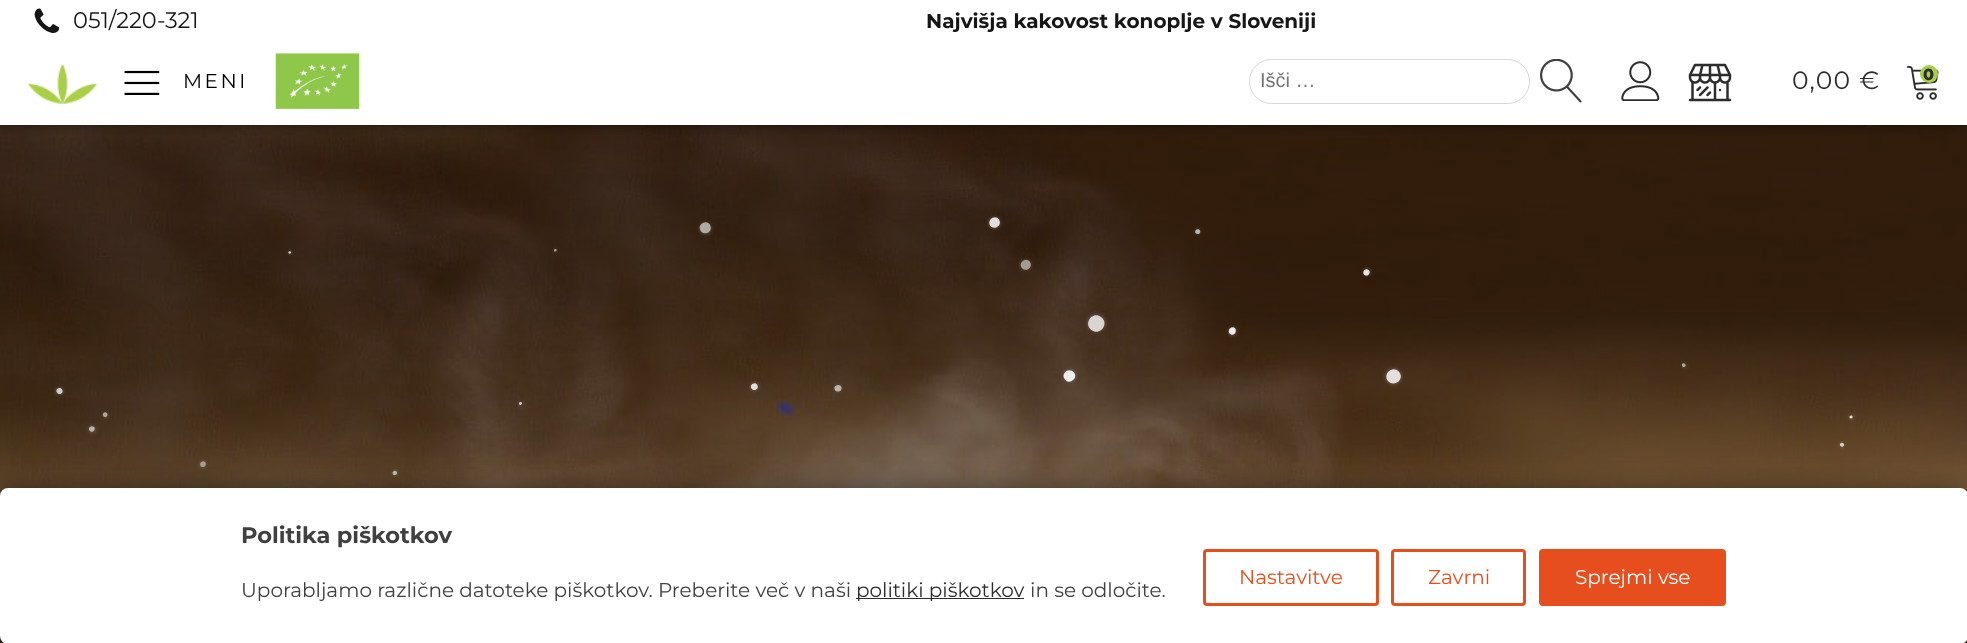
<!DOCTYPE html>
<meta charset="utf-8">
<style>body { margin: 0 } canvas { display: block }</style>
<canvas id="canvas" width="1967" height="643"></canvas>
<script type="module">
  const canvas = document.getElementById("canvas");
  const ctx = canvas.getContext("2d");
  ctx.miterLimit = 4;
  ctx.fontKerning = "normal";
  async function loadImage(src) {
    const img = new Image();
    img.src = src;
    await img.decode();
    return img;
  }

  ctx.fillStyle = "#ffffff";
  ctx.fillRect(0, 0, 1967, 643);
  ctx.drawImage(await loadImage("img9.png"), 0, 125, 1967, 518);
  ctx.save();
  ctx.beginPath();
  ctx.rect(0, 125, 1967, 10);
  ctx.clip();
  ctx.fillStyle = "rgba(0, 0, 0, 0.5)";
  ctx.filter = "blur(6px)";
  ctx.beginPath();
  ctx.rect(0, 0, 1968, 125);
  ctx.fill();
  ctx.filter = "none";
  ctx.restore();
  ctx.drawImage(await loadImage("img1.png"), 34, 8, 26, 25);
  ctx.font = "22.5px Montserrat";
  ctx.fillStyle = "#161616";
  ctx.fillText("051/220-321", 73, 28);
  ctx.font = "bold 20px Montserrat";
  ctx.fillText("Najvišja kakovost konoplje v Sloveniji", 926, 28);
  ctx.drawImage(await loadImage("img2.png"), 27, 63, 71, 41);
  ctx.drawImage(await loadImage("img3.png"), 124, 70, 36, 25);
  ctx.letterSpacing = "2.5px";
  ctx.font = "20px Montserrat";
  ctx.fillStyle = "#000000";
  ctx.fillText("MENI", 183, 88);
  ctx.drawImage(await loadImage("img4.png"), 275, 53, 85, 57);
  ctx.beginPath();
  ctx.roundRect(1249.5, 59.5, 280, 44, 22);
  ctx.strokeStyle = "#d7d7d7";
  ctx.stroke();
  ctx.letterSpacing = "0px";
  ctx.font = "20px Liberation Sans";
  ctx.fillStyle = "#757575";
  ctx.fillText("Išči …", 1260, 87);
  ctx.drawImage(await loadImage("img5.png"), 1540, 59, 42, 44);
  ctx.drawImage(await loadImage("img6.png"), 1621, 61, 39, 40);
  ctx.drawImage(await loadImage("img7.png"), 1688, 63, 44, 39);
  ctx.letterSpacing = "1.25px";
  ctx.font = "25px Montserrat";
  ctx.fillStyle = "#2d2d2d";
  ctx.fillText("0,00 €", 1792, 89);
  ctx.drawImage(await loadImage("img8.png"), 1906, 66, 33, 34);
  ctx.fillStyle = "#a8cf45";
  ctx.beginPath();
  ctx.arc(1929, 74, 9, 0, Math.PI * 2);
  ctx.fill();
  ctx.letterSpacing = "0px";
  ctx.font = "800 16px Montserrat";
  ctx.fillStyle = "#2d2d2d";
  ctx.fillText("0", 1923, 80);
  ctx.fillStyle = "rgba(255, 255, 255, 0.28)";
  ctx.filter = "blur(2px)";
  ctx.beginPath();
  ctx.roundRect(1868, 121, 3, 4, 1.5);
  ctx.fill();
  ctx.filter = "none";
  ctx.save();
  ctx.beginPath();
  ctx.moveTo(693, 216);
  ctx.lineTo(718, 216);
  ctx.lineTo(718, 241);
  ctx.lineTo(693, 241);
  ctx.closePath();
  ctx.moveTo(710.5, 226);
  ctx.bezierCurveTo(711.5, 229, 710, 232, 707, 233);
  ctx.bezierCurveTo(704.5, 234, 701, 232.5, 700, 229.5);
  ctx.bezierCurveTo(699.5, 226.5, 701, 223.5, 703.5, 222.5);
  ctx.bezierCurveTo(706.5, 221.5, 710, 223, 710.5, 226);
  ctx.closePath();
  ctx.clip("evenodd");
  ctx.fillStyle = "rgba(255, 255, 255, 0.2)";
  ctx.filter = "blur(2px)";
  ctx.beginPath();
  ctx.roundRect(700, 223, 11, 11, 5.5);
  ctx.fill();
  ctx.filter = "none";
  ctx.restore();
  ctx.fillStyle = "rgba(242, 242, 242, 0.66)";
  ctx.beginPath();
  ctx.moveTo(710.5, 226);
  ctx.bezierCurveTo(713, 233, 702.5, 236.5, 700, 229.5);
  ctx.bezierCurveTo(698, 222.5, 708.5, 219, 710.5, 226);
  ctx.closePath();
  ctx.fill();
  ctx.save();
  ctx.beginPath();
  ctx.moveTo(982, 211);
  ctx.lineTo(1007, 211);
  ctx.lineTo(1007, 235);
  ctx.lineTo(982, 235);
  ctx.closePath();
  ctx.moveTo(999.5, 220.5);
  ctx.bezierCurveTo(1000.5, 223.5, 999, 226.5, 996.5, 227.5);
  ctx.bezierCurveTo(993.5, 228.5, 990.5, 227, 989.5, 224.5);
  ctx.bezierCurveTo(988.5, 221.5, 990, 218.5, 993, 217.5);
  ctx.bezierCurveTo(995.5, 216.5, 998.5, 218, 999.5, 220.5);
  ctx.closePath();
  ctx.clip("evenodd");
  ctx.fillStyle = "rgba(255, 255, 255, 0.27)";
  ctx.filter = "blur(2px)";
  ctx.beginPath();
  ctx.roundRect(989, 218, 11, 10, 5);
  ctx.fill();
  ctx.filter = "none";
  ctx.restore();
  ctx.fillStyle = "rgba(242, 242, 242, 0.91)";
  ctx.beginPath();
  ctx.moveTo(999.5, 220.5);
  ctx.bezierCurveTo(1002, 227, 992, 231, 989.5, 224.5);
  ctx.bezierCurveTo(987.5, 218, 997, 214, 999.5, 220.5);
  ctx.closePath();
  ctx.fill();
  ctx.fillStyle = "rgba(196, 190, 186, 0.3)";
  ctx.filter = "blur(2px)";
  ctx.beginPath();
  ctx.roundRect(1195, 229, 5, 5, 2.5);
  ctx.fill();
  ctx.filter = "none";
  ctx.fillStyle = "#bbb5b0";
  ctx.beginPath();
  ctx.moveTo(1200, 230.5);
  ctx.bezierCurveTo(1201.5, 233, 1197.5, 235.5, 1195.5, 233);
  ctx.bezierCurveTo(1194, 230.5, 1198, 227.5, 1200, 230.5);
  ctx.closePath();
  ctx.fill();
  ctx.fillStyle = "rgba(255, 255, 255, 0.26)";
  ctx.filter = "blur(2px)";
  ctx.beginPath();
  ctx.roundRect(289, 251, 3, 3, 1.5);
  ctx.fill();
  ctx.filter = "none";
  ctx.fillStyle = "#d6d4d2";
  ctx.beginPath();
  ctx.moveTo(290.5, 251.5);
  ctx.bezierCurveTo(292, 252, 290.5, 254.5, 289, 253.5);
  ctx.bezierCurveTo(287.5, 253, 289, 250.5, 290.5, 251.5);
  ctx.closePath();
  ctx.fill();
  ctx.fillStyle = "rgba(255, 255, 255, 0.19)";
  ctx.filter = "blur(2px)";
  ctx.beginPath();
  ctx.roundRect(554, 249, 3, 3, 1.5);
  ctx.fill();
  ctx.filter = "none";
  ctx.fillStyle = "#aba49f";
  ctx.beginPath();
  ctx.moveTo(556, 249);
  ctx.bezierCurveTo(557.5, 250, 556, 252, 554.5, 251.5);
  ctx.bezierCurveTo(553, 250.5, 554.5, 248.5, 556, 249);
  ctx.closePath();
  ctx.fill();
  ctx.save();
  ctx.beginPath();
  ctx.moveTo(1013, 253);
  ctx.lineTo(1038, 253);
  ctx.lineTo(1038, 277);
  ctx.lineTo(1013, 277);
  ctx.closePath();
  ctx.moveTo(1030, 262);
  ctx.bezierCurveTo(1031.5, 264.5, 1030.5, 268, 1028.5, 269);
  ctx.bezierCurveTo(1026, 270.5, 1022.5, 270, 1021.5, 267.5);
  ctx.bezierCurveTo(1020, 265, 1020.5, 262, 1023, 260.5);
  ctx.bezierCurveTo(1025.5, 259, 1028.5, 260, 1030, 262);
  ctx.closePath();
  ctx.clip("evenodd");
  ctx.fillStyle = "rgba(255, 255, 255, 0.17)";
  ctx.filter = "blur(2px)";
  ctx.beginPath();
  ctx.roundRect(1020, 260, 11, 10, 5);
  ctx.fill();
  ctx.filter = "none";
  ctx.restore();
  ctx.fillStyle = "rgba(242, 242, 242, 0.58)";
  ctx.beginPath();
  ctx.moveTo(1030, 262);
  ctx.bezierCurveTo(1033.5, 268, 1025, 273, 1021.5, 267.5);
  ctx.bezierCurveTo(1018, 262, 1026.5, 256.5, 1030, 262);
  ctx.closePath();
  ctx.fill();
  ctx.fillStyle = "rgba(243, 242, 241, 0.3)";
  ctx.filter = "blur(2px)";
  ctx.beginPath();
  ctx.roundRect(1364, 269, 6, 6, 3);
  ctx.fill();
  ctx.filter = "none";
  ctx.fillStyle = "#e7e6e5";
  ctx.beginPath();
  ctx.moveTo(1367.5, 269.5);
  ctx.bezierCurveTo(1371.5, 270.5, 1369.5, 276.5, 1365.5, 275.5);
  ctx.bezierCurveTo(1361.5, 274.5, 1363.5, 268, 1367.5, 269.5);
  ctx.closePath();
  ctx.fill();
  ctx.save();
  ctx.beginPath();
  ctx.moveTo(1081, 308);
  ctx.lineTo(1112, 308);
  ctx.lineTo(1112, 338);
  ctx.lineTo(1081, 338);
  ctx.closePath();
  ctx.moveTo(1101, 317);
  ctx.bezierCurveTo(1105, 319.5, 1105.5, 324.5, 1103, 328.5);
  ctx.bezierCurveTo(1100.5, 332, 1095, 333, 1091.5, 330);
  ctx.bezierCurveTo(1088, 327.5, 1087, 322.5, 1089.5, 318.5);
  ctx.bezierCurveTo(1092.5, 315, 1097.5, 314, 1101, 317);
  ctx.closePath();
  ctx.clip("evenodd");
  ctx.fillStyle = "rgba(255, 255, 255, 0.25)";
  ctx.filter = "blur(2px)";
  ctx.beginPath();
  ctx.roundRect(1088, 315, 17, 16, 8);
  ctx.fill();
  ctx.filter = "none";
  ctx.restore();
  ctx.fillStyle = "rgba(242, 242, 242, 0.85)";
  ctx.beginPath();
  ctx.moveTo(1101, 317);
  ctx.bezierCurveTo(1110, 323.5, 1100, 336.5, 1091.5, 330);
  ctx.bezierCurveTo(1083, 323.5, 1092.5, 310.5, 1101, 317);
  ctx.closePath();
  ctx.fill();
  ctx.save();
  ctx.beginPath();
  ctx.moveTo(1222, 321);
  ctx.lineTo(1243, 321);
  ctx.lineTo(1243, 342);
  ctx.lineTo(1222, 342);
  ctx.closePath();
  ctx.moveTo(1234, 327.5);
  ctx.bezierCurveTo(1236, 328.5, 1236.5, 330.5, 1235.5, 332.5);
  ctx.bezierCurveTo(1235, 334.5, 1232.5, 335, 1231, 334.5);
  ctx.bezierCurveTo(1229, 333.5, 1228.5, 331.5, 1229, 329.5);
  ctx.bezierCurveTo(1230, 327.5, 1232, 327, 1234, 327.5);
  ctx.closePath();
  ctx.clip("evenodd");
  ctx.fillStyle = "rgba(255, 255, 255, 0.29)";
  ctx.filter = "blur(2px)";
  ctx.beginPath();
  ctx.roundRect(1229, 328, 7, 7, 3.5);
  ctx.fill();
  ctx.filter = "none";
  ctx.restore();
  ctx.fillStyle = "rgba(242, 242, 242, 0.97)";
  ctx.beginPath();
  ctx.moveTo(1234, 327.5);
  ctx.bezierCurveTo(1238, 329.5, 1235, 336.5, 1231, 334.5);
  ctx.bezierCurveTo(1226.5, 332.5, 1229.5, 326, 1234, 327.5);
  ctx.closePath();
  ctx.fill();
  ctx.save();
  ctx.beginPath();
  ctx.moveTo(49, 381);
  ctx.lineTo(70, 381);
  ctx.lineTo(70, 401);
  ctx.lineTo(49, 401);
  ctx.closePath();
  ctx.moveTo(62, 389.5);
  ctx.bezierCurveTo(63, 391, 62.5, 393, 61, 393.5);
  ctx.bezierCurveTo(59.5, 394.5, 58, 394, 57, 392.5);
  ctx.bezierCurveTo(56, 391.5, 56.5, 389.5, 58, 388.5);
  ctx.bezierCurveTo(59, 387.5, 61, 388, 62, 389.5);
  ctx.closePath();
  ctx.clip("evenodd");
  ctx.fillStyle = "rgba(255, 255, 255, 0.24)";
  ctx.filter = "blur(2px)";
  ctx.beginPath();
  ctx.roundRect(56, 388, 7, 6, 3);
  ctx.fill();
  ctx.filter = "none";
  ctx.restore();
  ctx.fillStyle = "rgba(242, 242, 242, 0.81)";
  ctx.beginPath();
  ctx.moveTo(62, 389.5);
  ctx.bezierCurveTo(64.5, 393, 59, 396, 57, 392.5);
  ctx.bezierCurveTo(54.5, 389.5, 60, 386, 62, 389.5);
  ctx.closePath();
  ctx.fill();
  ctx.save();
  ctx.beginPath();
  ctx.moveTo(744, 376);
  ctx.lineTo(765, 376);
  ctx.lineTo(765, 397);
  ctx.lineTo(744, 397);
  ctx.closePath();
  ctx.moveTo(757, 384.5);
  ctx.bezierCurveTo(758.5, 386, 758, 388.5, 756.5, 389.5);
  ctx.bezierCurveTo(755, 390.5, 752.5, 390.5, 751.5, 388.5);
  ctx.bezierCurveTo(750.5, 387, 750.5, 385, 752, 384);
  ctx.bezierCurveTo(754, 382.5, 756, 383, 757, 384.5);
  ctx.closePath();
  ctx.clip("evenodd");
  ctx.fillStyle = "rgba(255, 255, 255, 0.27)";
  ctx.filter = "blur(2px)";
  ctx.beginPath();
  ctx.roundRect(751, 383, 7, 7, 3.5);
  ctx.fill();
  ctx.filter = "none";
  ctx.restore();
  ctx.fillStyle = "rgba(242, 242, 242, 0.9)";
  ctx.beginPath();
  ctx.moveTo(757, 384.5);
  ctx.bezierCurveTo(760, 388, 754.5, 392.5, 751.5, 388.5);
  ctx.bezierCurveTo(749, 385, 754.5, 381, 757, 384.5);
  ctx.closePath();
  ctx.fill();
  ctx.save();
  ctx.beginPath();
  ctx.moveTo(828, 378);
  ctx.lineTo(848, 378);
  ctx.lineTo(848, 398);
  ctx.lineTo(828, 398);
  ctx.closePath();
  ctx.moveTo(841.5, 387.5);
  ctx.bezierCurveTo(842, 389, 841, 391, 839, 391.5);
  ctx.bezierCurveTo(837, 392, 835.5, 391, 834.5, 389);
  ctx.bezierCurveTo(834, 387.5, 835.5, 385.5, 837, 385);
  ctx.bezierCurveTo(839, 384.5, 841, 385.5, 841.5, 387.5);
  ctx.closePath();
  ctx.clip("evenodd");
  ctx.fillStyle = "rgba(255, 255, 255, 0.2)";
  ctx.filter = "blur(2px)";
  ctx.beginPath();
  ctx.roundRect(835, 385, 6, 6, 3);
  ctx.fill();
  ctx.filter = "none";
  ctx.restore();
  ctx.fillStyle = "rgba(242, 242, 242, 0.67)";
  ctx.beginPath();
  ctx.moveTo(841.5, 387.5);
  ctx.bezierCurveTo(842.5, 391.5, 836, 393.5, 834.5, 389);
  ctx.bezierCurveTo(833.5, 385, 840.5, 383, 841.5, 387.5);
  ctx.closePath();
  ctx.fill();
  ctx.save();
  ctx.beginPath();
  ctx.moveTo(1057, 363);
  ctx.lineTo(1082, 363);
  ctx.lineTo(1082, 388);
  ctx.lineTo(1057, 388);
  ctx.closePath();
  ctx.moveTo(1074, 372.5);
  ctx.bezierCurveTo(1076, 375, 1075.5, 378.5, 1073, 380.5);
  ctx.bezierCurveTo(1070.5, 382.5, 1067, 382, 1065, 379.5);
  ctx.bezierCurveTo(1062.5, 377, 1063, 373.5, 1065.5, 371.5);
  ctx.bezierCurveTo(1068, 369.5, 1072, 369.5, 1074, 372.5);
  ctx.closePath();
  ctx.clip("evenodd");
  ctx.fillStyle = "rgba(255, 255, 255, 0.29)";
  ctx.filter = "blur(2px)";
  ctx.beginPath();
  ctx.roundRect(1064, 370, 11, 11, 5.5);
  ctx.fill();
  ctx.filter = "none";
  ctx.restore();
  ctx.fillStyle = "rgba(242, 242, 242, 0.98)";
  ctx.beginPath();
  ctx.moveTo(1074, 372.5);
  ctx.bezierCurveTo(1078.5, 378, 1069.5, 385.5, 1065, 379.5);
  ctx.bezierCurveTo(1060, 373.5, 1069, 366.5, 1074, 372.5);
  ctx.closePath();
  ctx.fill();
  ctx.save();
  ctx.beginPath();
  ctx.moveTo(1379, 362);
  ctx.lineTo(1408, 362);
  ctx.lineTo(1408, 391);
  ctx.lineTo(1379, 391);
  ctx.closePath();
  ctx.moveTo(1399.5, 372.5);
  ctx.bezierCurveTo(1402, 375.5, 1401, 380, 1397.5, 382.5);
  ctx.bezierCurveTo(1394.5, 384.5, 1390, 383.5, 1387.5, 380.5);
  ctx.bezierCurveTo(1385.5, 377, 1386, 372.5, 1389.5, 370.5);
  ctx.bezierCurveTo(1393, 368, 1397.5, 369, 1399.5, 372.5);
  ctx.closePath();
  ctx.clip("evenodd");
  ctx.fillStyle = "rgba(255, 255, 255, 0.27)";
  ctx.filter = "blur(2px)";
  ctx.beginPath();
  ctx.roundRect(1386, 369, 15, 15, 7.5);
  ctx.fill();
  ctx.filter = "none";
  ctx.restore();
  ctx.fillStyle = "rgba(242, 242, 242, 0.91)";
  ctx.beginPath();
  ctx.moveTo(1399.5, 372.5);
  ctx.bezierCurveTo(1405, 380, 1393, 388, 1387.5, 380.5);
  ctx.bezierCurveTo(1382.5, 372.5, 1394.5, 364.5, 1399.5, 372.5);
  ctx.closePath();
  ctx.fill();
  ctx.fillStyle = "rgba(255, 255, 255, 0.19)";
  ctx.filter = "blur(2px)";
  ctx.beginPath();
  ctx.roundRect(1683, 364, 4, 4, 2);
  ctx.fill();
  ctx.filter = "none";
  ctx.fillStyle = "#afa79e";
  ctx.beginPath();
  ctx.moveTo(1685, 364);
  ctx.bezierCurveTo(1687, 365.5, 1684, 368.5, 1682.5, 366.5);
  ctx.bezierCurveTo(1680.5, 364.5, 1683.5, 362, 1685, 364);
  ctx.closePath();
  ctx.fill();
  ctx.fillStyle = "rgba(255, 255, 255, 0.18)";
  ctx.filter = "blur(2px)";
  ctx.beginPath();
  ctx.roundRect(103, 413, 5, 5, 2.5);
  ctx.fill();
  ctx.filter = "none";
  ctx.fillStyle = "#ada59e";
  ctx.beginPath();
  ctx.moveTo(106, 412.5);
  ctx.bezierCurveTo(109, 414, 107, 418, 104.5, 417);
  ctx.bezierCurveTo(101.5, 416, 103, 411.5, 106, 412.5);
  ctx.closePath();
  ctx.fill();
  ctx.save();
  ctx.beginPath();
  ctx.moveTo(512, 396);
  ctx.lineTo(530, 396);
  ctx.lineTo(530, 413);
  ctx.lineTo(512, 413);
  ctx.closePath();
  ctx.moveTo(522, 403);
  ctx.bezierCurveTo(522, 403.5, 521.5, 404.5, 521, 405);
  ctx.bezierCurveTo(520, 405, 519.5, 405, 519, 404);
  ctx.bezierCurveTo(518.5, 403, 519, 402.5, 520, 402);
  ctx.bezierCurveTo(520.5, 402, 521.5, 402, 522, 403);
  ctx.closePath();
  ctx.clip("evenodd");
  ctx.fillStyle = "rgba(255, 255, 255, 0.25)";
  ctx.filter = "blur(2px)";
  ctx.beginPath();
  ctx.roundRect(519, 403, 4, 3, 1.5);
  ctx.fill();
  ctx.filter = "none";
  ctx.restore();
  ctx.fillStyle = "rgba(242, 242, 242, 0.82)";
  ctx.beginPath();
  ctx.moveTo(522, 403);
  ctx.bezierCurveTo(522.5, 404.5, 519.5, 406, 519, 404);
  ctx.bezierCurveTo(518.5, 402, 521, 401, 522, 403);
  ctx.closePath();
  ctx.fill();
  ctx.fillStyle = "rgba(255, 255, 255, 0.26)";
  ctx.filter = "blur(2px)";
  ctx.beginPath();
  ctx.roundRect(1850, 415, 3, 4, 1.5);
  ctx.fill();
  ctx.filter = "none";
  ctx.fillStyle = "rgba(242, 242, 242, 0.87)";
  ctx.beginPath();
  ctx.moveTo(1852.5, 416.5);
  ctx.bezierCurveTo(1853.5, 418, 1850.5, 419.5, 1849.5, 417.5);
  ctx.bezierCurveTo(1849, 415.5, 1852, 414.5, 1852.5, 416.5);
  ctx.closePath();
  ctx.fill();
  ctx.save();
  ctx.beginPath();
  ctx.moveTo(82, 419);
  ctx.lineTo(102, 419);
  ctx.lineTo(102, 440);
  ctx.lineTo(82, 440);
  ctx.closePath();
  ctx.moveTo(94, 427);
  ctx.bezierCurveTo(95, 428, 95, 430, 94, 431);
  ctx.bezierCurveTo(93, 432, 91, 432, 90, 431);
  ctx.bezierCurveTo(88.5, 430, 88.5, 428.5, 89.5, 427);
  ctx.bezierCurveTo(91, 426, 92.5, 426, 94, 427);
  ctx.closePath();
  ctx.clip("evenodd");
  ctx.fillStyle = "rgba(255, 255, 255, 0.2)";
  ctx.filter = "blur(2px)";
  ctx.beginPath();
  ctx.roundRect(89, 426, 6, 7, 3);
  ctx.fill();
  ctx.filter = "none";
  ctx.restore();
  ctx.fillStyle = "rgba(242, 242, 242, 0.68)";
  ctx.beginPath();
  ctx.moveTo(94, 427);
  ctx.bezierCurveTo(96.5, 429.5, 92.5, 433.5, 90, 431);
  ctx.bezierCurveTo(87, 428.5, 91, 424.5, 94, 427);
  ctx.closePath();
  ctx.fill();
  ctx.save();
  ctx.beginPath();
  ctx.moveTo(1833, 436);
  ctx.lineTo(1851, 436);
  ctx.lineTo(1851, 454);
  ctx.lineTo(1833, 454);
  ctx.closePath();
  ctx.moveTo(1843.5, 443.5);
  ctx.bezierCurveTo(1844.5, 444.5, 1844, 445.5, 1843.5, 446.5);
  ctx.bezierCurveTo(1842.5, 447, 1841, 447, 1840.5, 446);
  ctx.bezierCurveTo(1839.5, 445, 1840, 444, 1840.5, 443);
  ctx.bezierCurveTo(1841.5, 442.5, 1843, 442.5, 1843.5, 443.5);
  ctx.closePath();
  ctx.clip("evenodd");
  ctx.fillStyle = "rgba(255, 255, 255, 0.24)";
  ctx.filter = "blur(2px)";
  ctx.beginPath();
  ctx.roundRect(1840, 443, 4, 4, 2);
  ctx.fill();
  ctx.filter = "none";
  ctx.restore();
  ctx.fillStyle = "rgba(242, 242, 242, 0.81)";
  ctx.beginPath();
  ctx.moveTo(1843.5, 443.5);
  ctx.bezierCurveTo(1845.5, 445.5, 1842, 448, 1840.5, 446);
  ctx.bezierCurveTo(1838.5, 444, 1842, 441.5, 1843.5, 443.5);
  ctx.closePath();
  ctx.fill();
  ctx.save();
  ctx.beginPath();
  ctx.moveTo(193, 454);
  ctx.lineTo(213, 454);
  ctx.lineTo(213, 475);
  ctx.lineTo(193, 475);
  ctx.closePath();
  ctx.moveTo(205, 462);
  ctx.bezierCurveTo(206, 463, 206, 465, 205, 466);
  ctx.bezierCurveTo(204, 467, 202.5, 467.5, 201, 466.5);
  ctx.bezierCurveTo(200, 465.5, 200, 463.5, 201, 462.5);
  ctx.bezierCurveTo(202, 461, 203.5, 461, 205, 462);
  ctx.closePath();
  ctx.clip("evenodd");
  ctx.fillStyle = "rgba(255, 255, 255, 0.16)";
  ctx.filter = "blur(2px)";
  ctx.beginPath();
  ctx.roundRect(200, 461, 6, 7, 3);
  ctx.fill();
  ctx.filter = "none";
  ctx.restore();
  ctx.fillStyle = "rgba(242, 242, 242, 0.54)";
  ctx.beginPath();
  ctx.moveTo(205, 462);
  ctx.bezierCurveTo(207.5, 464.5, 204, 468.5, 201, 466.5);
  ctx.bezierCurveTo(198.5, 464, 202, 459.5, 205, 462);
  ctx.closePath();
  ctx.fill();
  ctx.fillStyle = "rgba(255, 255, 255, 0.21)";
  ctx.filter = "blur(2px)";
  ctx.beginPath();
  ctx.roundRect(393, 471, 5, 4, 2);
  ctx.fill();
  ctx.filter = "none";
  ctx.fillStyle = "#c3bcb4";
  ctx.beginPath();
  ctx.moveTo(396.5, 471.5);
  ctx.bezierCurveTo(398.5, 473.5, 395, 476.5, 393, 474.5);
  ctx.bezierCurveTo(391.5, 472.5, 394.5, 469.5, 396.5, 471.5);
  ctx.closePath();
  ctx.fill();
  ctx.fillStyle = "rgba(0, 0, 0, 0.6)";
  ctx.fillRect(0, 636, 1967, 7);
  ctx.fillStyle = "rgba(0, 0, 0, 0.4)";
  ctx.filter = "blur(12.5px)";
  ctx.beginPath();
  ctx.roundRect(0, 488, 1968, 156, 8);
  ctx.fill();
  ctx.filter = "none";
  ctx.fillStyle = "#ffffff";
  ctx.beginPath();
  ctx.roundRect(0, 488, 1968, 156, 8);
  ctx.fill();
  ctx.font = "bold 22.5px Montserrat";
  ctx.fillStyle = "#404040";
  ctx.fillText("Politika piškotkov", 241, 543);
  ctx.font = "20px Montserrat";
  ctx.fillText("Uporabljamo različne datoteke piškotkov. Preberite več v naši", 241, 597);
  ctx.fillStyle = "#2d2d2d";
  ctx.fillRect(856, 598, 168, 1);
  ctx.fillText("politiki piškotkov", 856, 597);
  ctx.fillStyle = "#404040";
  ctx.fillText("in se odločite.", 1030, 597);
  ctx.beginPath();
  ctx.roundRect(1204.5, 550.5, 173, 54, 2.5);
  ctx.strokeStyle = "#e74e1e";
  ctx.lineWidth = 3;
  ctx.stroke();
  ctx.fillStyle = "#e74e1e";
  ctx.fillText("Nastavitve", 1239, 584);
  ctx.beginPath();
  ctx.roundRect(1392.5, 550.5, 132, 54, 2.5);
  ctx.stroke();
  ctx.fillText("Zavrni", 1428, 584);
  ctx.beginPath();
  ctx.roundRect(1540.5, 550.5, 184, 54, 2.5);
  ctx.fill();
  ctx.stroke();
  ctx.fillStyle = "#ffffff";
  ctx.fillText("Sprejmi vse", 1575, 584);
</script>
